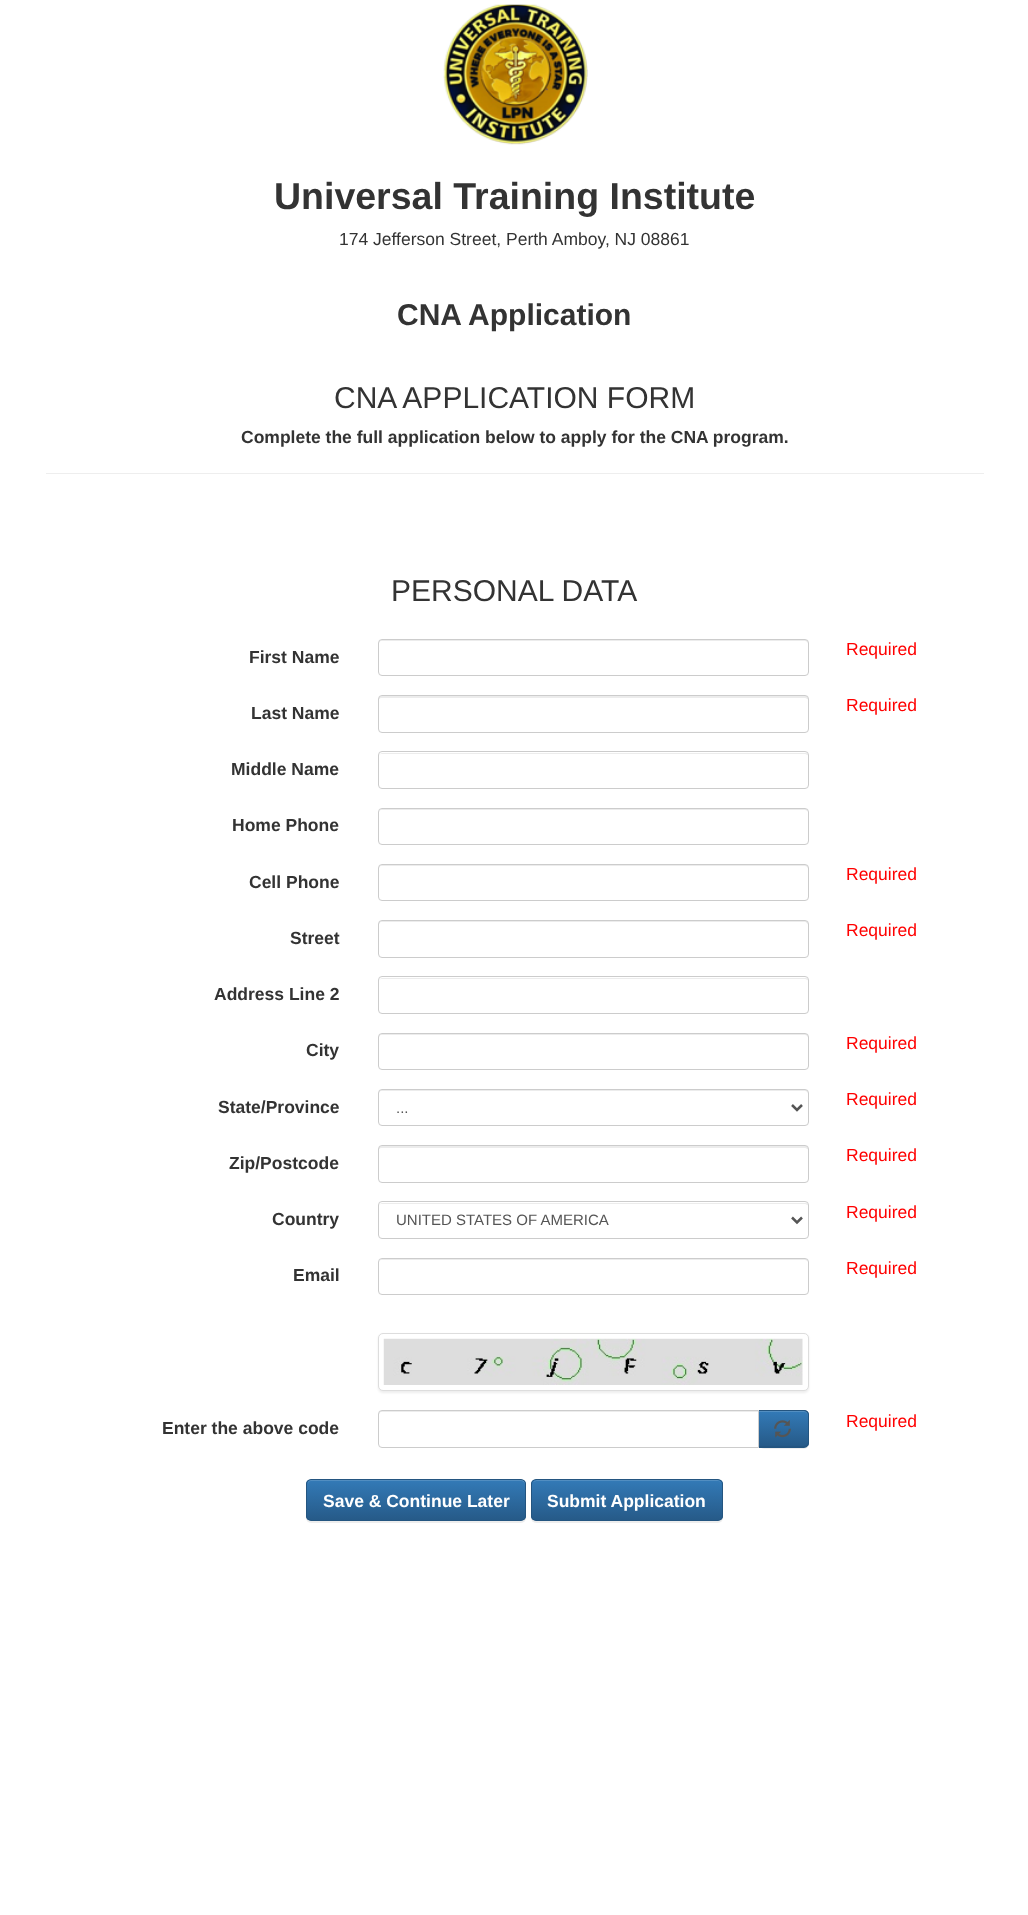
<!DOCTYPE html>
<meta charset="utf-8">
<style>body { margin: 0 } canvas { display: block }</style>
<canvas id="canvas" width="1028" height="1915"></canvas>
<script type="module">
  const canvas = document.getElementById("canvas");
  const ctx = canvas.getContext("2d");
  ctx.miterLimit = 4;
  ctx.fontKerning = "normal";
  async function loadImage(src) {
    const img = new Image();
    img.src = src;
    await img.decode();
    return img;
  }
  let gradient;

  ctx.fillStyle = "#ffffff";
  ctx.fillRect(0, 0, 1028, 1915);
  ctx.drawImage(await loadImage("img1.png"), 443, 4, 145, 141);
  ctx.font = "bold 37.5px Liberation Sans";
  ctx.fillStyle = "#333333";
  ctx.fillText("Universal Training Institute", 274, 209);
  ctx.font = "17.5px Liberation Sans";
  ctx.fillText("174 Jefferson Street, Perth Amboy, NJ 08861", 339, 245);
  ctx.font = "bold 30px Liberation Sans";
  ctx.fillText("CNA Application", 397, 325);
  ctx.font = "30px Liberation Sans";
  ctx.fillText("CNA APPLICATION FORM", 334, 408);
  ctx.font = "bold 17.5px Liberation Sans";
  ctx.fillText("Complete the full application below to apply for the CNA program.", 241, 443);
  ctx.fillStyle = "#eeeeee";
  ctx.fillRect(46, 473, 938, 1);
  ctx.font = "30px Liberation Sans";
  ctx.fillStyle = "#333333";
  ctx.fillText("PERSONAL DATA", 391, 601);
  ctx.font = "bold 17.5px Liberation Sans";
  ctx.fillText("First Name", 249, 663);
  ctx.fillStyle = "#ececec";
  ctx.beginPath();
  ctx.moveTo(381, 641);
  ctx.lineTo(805, 641);
  ctx.bezierCurveTo(806, 641, 808, 642, 808, 644);
  ctx.bezierCurveTo(808, 642, 808, 640, 806, 640);
  ctx.lineTo(382, 640);
  ctx.lineTo(379, 641);
  ctx.lineTo(379, 644);
  ctx.bezierCurveTo(379, 642, 380, 641, 381, 641);
  ctx.closePath();
  ctx.fill();
  ctx.beginPath();
  ctx.roundRect(378.5, 639.5, 430, 36, 3.5);
  ctx.strokeStyle = "#cccccc";
  ctx.stroke();
  ctx.font = "17.5px Liberation Sans";
  ctx.fillStyle = "#ff0000";
  ctx.fillText("Required", 846, 655);
  ctx.font = "bold 17.5px Liberation Sans";
  ctx.fillStyle = "#333333";
  ctx.fillText("Last Name", 251, 719);
  ctx.fillStyle = "#ececec";
  ctx.beginPath();
  ctx.moveTo(381, 698);
  ctx.lineTo(805, 698);
  ctx.bezierCurveTo(806, 698, 808, 699, 808, 700);
  ctx.bezierCurveTo(808, 698, 808, 696, 806, 696);
  ctx.lineTo(382, 696);
  ctx.lineTo(379, 697);
  ctx.lineTo(379, 700);
  ctx.bezierCurveTo(379, 699, 380, 698, 381, 698);
  ctx.closePath();
  ctx.fill();
  ctx.beginPath();
  ctx.roundRect(378.5, 695.5, 430, 37, 3.5);
  ctx.stroke();
  ctx.font = "17.5px Liberation Sans";
  ctx.fillStyle = "#ff0000";
  ctx.fillText("Required", 846, 711);
  ctx.font = "bold 17.5px Liberation Sans";
  ctx.fillStyle = "#333333";
  ctx.fillText("Middle Name", 231, 775);
  ctx.fillStyle = "#ececec";
  ctx.beginPath();
  ctx.moveTo(381, 754);
  ctx.lineTo(805, 754);
  ctx.bezierCurveTo(806, 754, 808, 755, 808, 756);
  ctx.bezierCurveTo(808, 754, 807, 753, 806, 753);
  ctx.lineTo(382, 753);
  ctx.lineTo(380, 754);
  ctx.lineTo(379, 756);
  ctx.bezierCurveTo(379, 755, 380, 754, 381, 754);
  ctx.closePath();
  ctx.fill();
  ctx.beginPath();
  ctx.roundRect(378.5, 751.5, 430, 37, 3.5);
  ctx.stroke();
  ctx.fillStyle = "#333333";
  ctx.fillText("Home Phone", 232, 831);
  ctx.fillStyle = "#ececec";
  ctx.beginPath();
  ctx.moveTo(381, 810);
  ctx.lineTo(805, 810);
  ctx.bezierCurveTo(806, 810, 808, 811, 808, 812);
  ctx.bezierCurveTo(808, 810, 807, 809, 806, 809);
  ctx.lineTo(382, 809);
  ctx.lineTo(380, 810);
  ctx.lineTo(379, 812);
  ctx.bezierCurveTo(379, 811, 380, 810, 381, 810);
  ctx.closePath();
  ctx.fill();
  ctx.beginPath();
  ctx.roundRect(378.5, 808.5, 430, 36, 3.5);
  ctx.stroke();
  ctx.fillStyle = "#333333";
  ctx.fillText("Cell Phone", 249, 888);
  ctx.fillStyle = "#ececec";
  ctx.beginPath();
  ctx.moveTo(381, 866);
  ctx.lineTo(805, 866);
  ctx.bezierCurveTo(806, 866, 808, 867, 808, 869);
  ctx.bezierCurveTo(808, 867, 808, 865, 806, 865);
  ctx.lineTo(382, 865);
  ctx.lineTo(379, 866);
  ctx.lineTo(379, 869);
  ctx.bezierCurveTo(379, 867, 380, 866, 381, 866);
  ctx.closePath();
  ctx.fill();
  ctx.beginPath();
  ctx.roundRect(378.5, 864.5, 430, 36, 3.5);
  ctx.stroke();
  ctx.font = "17.5px Liberation Sans";
  ctx.fillStyle = "#ff0000";
  ctx.fillText("Required", 846, 880);
  ctx.font = "bold 17.5px Liberation Sans";
  ctx.fillStyle = "#333333";
  ctx.fillText("Street", 290, 944);
  ctx.fillStyle = "#ececec";
  ctx.beginPath();
  ctx.moveTo(381, 922);
  ctx.lineTo(805, 922);
  ctx.bezierCurveTo(806, 922, 808, 924, 808, 925);
  ctx.bezierCurveTo(808, 923, 808, 921, 806, 921);
  ctx.lineTo(382, 921);
  ctx.lineTo(379, 922);
  ctx.lineTo(379, 925);
  ctx.bezierCurveTo(379, 924, 380, 922, 381, 922);
  ctx.closePath();
  ctx.fill();
  ctx.beginPath();
  ctx.roundRect(378.5, 920.5, 430, 37, 3.5);
  ctx.stroke();
  ctx.font = "17.5px Liberation Sans";
  ctx.fillStyle = "#ff0000";
  ctx.fillText("Required", 846, 936);
  ctx.font = "bold 17.5px Liberation Sans";
  ctx.fillStyle = "#333333";
  ctx.fillText("Address Line 2", 214, 1000);
  ctx.fillStyle = "#ececec";
  ctx.beginPath();
  ctx.moveTo(381, 979);
  ctx.lineTo(805, 979);
  ctx.bezierCurveTo(806, 979, 808, 980, 808, 981);
  ctx.bezierCurveTo(808, 979, 807, 978, 806, 978);
  ctx.lineTo(382, 978);
  ctx.lineTo(380, 979);
  ctx.lineTo(379, 981);
  ctx.bezierCurveTo(379, 980, 380, 979, 381, 979);
  ctx.closePath();
  ctx.fill();
  ctx.beginPath();
  ctx.roundRect(378.5, 976.5, 430, 37, 3.5);
  ctx.stroke();
  ctx.fillStyle = "#333333";
  ctx.fillText("City", 306, 1056);
  ctx.fillStyle = "#ececec";
  ctx.beginPath();
  ctx.moveTo(381, 1035);
  ctx.lineTo(805, 1035);
  ctx.bezierCurveTo(806, 1035, 808, 1036, 808, 1038);
  ctx.bezierCurveTo(808, 1036, 808, 1034, 806, 1034);
  ctx.lineTo(382, 1034);
  ctx.lineTo(379, 1035);
  ctx.lineTo(379, 1038);
  ctx.bezierCurveTo(379, 1036, 380, 1035, 381, 1035);
  ctx.closePath();
  ctx.fill();
  ctx.beginPath();
  ctx.roundRect(378.5, 1033.5, 430, 36, 3.5);
  ctx.stroke();
  ctx.font = "17.5px Liberation Sans";
  ctx.fillStyle = "#ff0000";
  ctx.fillText("Required", 846, 1049);
  ctx.font = "bold 17.5px Liberation Sans";
  ctx.fillStyle = "#333333";
  ctx.fillText("State/Province", 218, 1113);
  ctx.fillStyle = "#ececec";
  ctx.beginPath();
  ctx.moveTo(381, 1091);
  ctx.lineTo(805, 1091);
  ctx.bezierCurveTo(806, 1091, 808, 1092, 808, 1094);
  ctx.bezierCurveTo(808, 1092, 808, 1090, 806, 1090);
  ctx.lineTo(382, 1090);
  ctx.lineTo(379, 1091);
  ctx.lineTo(379, 1094);
  ctx.bezierCurveTo(379, 1092, 380, 1091, 381, 1091);
  ctx.closePath();
  ctx.fill();
  ctx.beginPath();
  ctx.roundRect(378.5, 1089.5, 430, 36, 3.5);
  ctx.stroke();
  ctx.beginPath();
  ctx.moveTo(792, 1105);
  ctx.lineTo(797, 1110);
  ctx.lineTo(802, 1105);
  ctx.strokeStyle = "#555555";
  ctx.lineWidth = 2.5;
  ctx.stroke();
  ctx.font = "15px Liberation Sans";
  ctx.fillStyle = "#555555";
  ctx.fillText("...", 396, 1113);
  ctx.font = "17.5px Liberation Sans";
  ctx.fillStyle = "#ff0000";
  ctx.fillText("Required", 846, 1105);
  ctx.font = "bold 17.5px Liberation Sans";
  ctx.fillStyle = "#333333";
  ctx.fillText("Zip/Postcode", 229, 1169);
  ctx.fillStyle = "#ececec";
  ctx.beginPath();
  ctx.moveTo(381, 1148);
  ctx.lineTo(805, 1148);
  ctx.bezierCurveTo(806, 1148, 808, 1149, 808, 1150);
  ctx.bezierCurveTo(808, 1148, 808, 1146, 806, 1146);
  ctx.lineTo(382, 1146);
  ctx.lineTo(379, 1147);
  ctx.lineTo(379, 1150);
  ctx.bezierCurveTo(379, 1149, 380, 1148, 381, 1148);
  ctx.closePath();
  ctx.fill();
  ctx.beginPath();
  ctx.roundRect(378.5, 1145.5, 430, 37, 3.5);
  ctx.strokeStyle = "#cccccc";
  ctx.lineWidth = 1;
  ctx.stroke();
  ctx.font = "17.5px Liberation Sans";
  ctx.fillStyle = "#ff0000";
  ctx.fillText("Required", 846, 1161);
  ctx.font = "bold 17.5px Liberation Sans";
  ctx.fillStyle = "#333333";
  ctx.fillText("Country", 272, 1225);
  ctx.fillStyle = "#ececec";
  ctx.beginPath();
  ctx.moveTo(381, 1204);
  ctx.lineTo(805, 1204);
  ctx.bezierCurveTo(806, 1204, 808, 1205, 808, 1206);
  ctx.bezierCurveTo(808, 1204, 807, 1203, 806, 1203);
  ctx.lineTo(382, 1203);
  ctx.lineTo(380, 1204);
  ctx.lineTo(379, 1206);
  ctx.bezierCurveTo(379, 1205, 380, 1204, 381, 1204);
  ctx.closePath();
  ctx.fill();
  ctx.beginPath();
  ctx.roundRect(378.5, 1201.5, 430, 37, 3.5);
  ctx.stroke();
  ctx.beginPath();
  ctx.moveTo(792, 1217.5);
  ctx.lineTo(797, 1222.5);
  ctx.lineTo(802, 1217.5);
  ctx.strokeStyle = "#555555";
  ctx.lineWidth = 2.5;
  ctx.stroke();
  ctx.font = "15px Liberation Sans";
  ctx.fillStyle = "#555555";
  ctx.fillText("UNITED STATES OF AMERICA", 396, 1225);
  ctx.font = "17.5px Liberation Sans";
  ctx.fillStyle = "#ff0000";
  ctx.fillText("Required", 846, 1218);
  ctx.font = "bold 17.5px Liberation Sans";
  ctx.fillStyle = "#333333";
  ctx.fillText("Email", 293, 1281);
  ctx.fillStyle = "#ececec";
  ctx.beginPath();
  ctx.moveTo(381, 1260);
  ctx.lineTo(805, 1260);
  ctx.bezierCurveTo(806, 1260, 808, 1261, 808, 1262);
  ctx.bezierCurveTo(808, 1260, 807, 1259, 806, 1259);
  ctx.lineTo(382, 1259);
  ctx.lineTo(380, 1260);
  ctx.lineTo(379, 1262);
  ctx.bezierCurveTo(379, 1261, 380, 1260, 381, 1260);
  ctx.closePath();
  ctx.fill();
  ctx.beginPath();
  ctx.roundRect(378.5, 1258.5, 430, 36, 3.5);
  ctx.strokeStyle = "#cccccc";
  ctx.lineWidth = 1;
  ctx.stroke();
  ctx.font = "17.5px Liberation Sans";
  ctx.fillStyle = "#ff0000";
  ctx.fillText("Required", 846, 1274);
  ctx.fillStyle = "rgba(0, 0, 0, 0.07)";
  ctx.filter = "blur(1px)";
  ctx.beginPath();
  ctx.roundRect(378, 1334, 431, 59, 5);
  ctx.fill();
  ctx.filter = "none";
  ctx.fillStyle = "#ffffff";
  ctx.beginPath();
  ctx.roundRect(378.5, 1333.5, 430, 57, 4.5);
  ctx.fill();
  ctx.strokeStyle = "#dddddd";
  ctx.stroke();
  ctx.drawImage(await loadImage("img2.png"), 383, 1338, 420, 47);
  ctx.font = "bold 17.5px Liberation Sans";
  ctx.fillStyle = "#333333";
  ctx.fillText("Enter the above code", 162, 1434);
  ctx.fillStyle = "rgba(0, 0, 0, 0.07)";
  ctx.filter = "blur(0.5px)";
  ctx.beginPath();
  ctx.roundRect(759, 1411, 50, 38, 5);
  ctx.fill();
  ctx.filter = "none";
  ctx.fillStyle = "#ececec";
  ctx.beginPath();
  ctx.moveTo(381, 1412);
  ctx.lineTo(758, 1412);
  ctx.lineTo(758, 1411);
  ctx.lineTo(382, 1411);
  ctx.bezierCurveTo(379, 1411, 379, 1413, 379, 1415);
  ctx.bezierCurveTo(379, 1414, 380, 1412, 381, 1412);
  ctx.closePath();
  ctx.fill();
  ctx.beginPath();
  ctx.roundRect(378.5, 1410.5, 380, 37, [3.5, 0, 0, 3.5]);
  ctx.strokeStyle = "#cccccc";
  ctx.stroke();
  ctx.fillStyle = "#eeeeee";
  ctx.beginPath();
  ctx.roundRect(759, 1410, 50, 38, [0, 5, 5, 0]);
  ctx.fill();
  ctx.save();
  ctx.beginPath();
  ctx.roundRect(759, 1410, 50, 38, [0, 5, 5, 0]);
  ctx.clip();
  gradient = ctx.createLinearGradient(783, 1411, 783, 1446);
  gradient.addColorStop(0, "#337ab7");
  gradient.addColorStop(1, "#265a88");
  ctx.fillStyle = gradient;
  ctx.fillRect(759, 1411, 50, 35);
  ctx.restore();
  ctx.fillStyle = "#528ec1";
  ctx.beginPath();
  ctx.moveTo(759, 1412);
  ctx.lineTo(804, 1412);
  ctx.bezierCurveTo(806, 1412, 808, 1414, 808, 1416);
  ctx.lineTo(808, 1415);
  ctx.bezierCurveTo(808, 1413, 806, 1411, 804, 1411);
  ctx.lineTo(759, 1411);
  ctx.closePath();
  ctx.fill();
  ctx.fillStyle = "#245580";
  ctx.beginPath();
  ctx.moveTo(759, 1410);
  ctx.lineTo(804, 1410);
  ctx.bezierCurveTo(807, 1410, 809, 1412, 809, 1415);
  ctx.lineTo(809, 1442);
  ctx.bezierCurveTo(809, 1445, 807, 1448, 804, 1448);
  ctx.lineTo(759, 1448);
  ctx.closePath();
  ctx.moveTo(759, 1411);
  ctx.lineTo(804, 1411);
  ctx.bezierCurveTo(806, 1411, 808, 1413, 808, 1415);
  ctx.lineTo(808, 1442);
  ctx.bezierCurveTo(808, 1445, 806, 1446, 804, 1446);
  ctx.lineTo(759, 1446);
  ctx.closePath();
  ctx.fill("evenodd");
  ctx.drawImage(await loadImage("img3.png"), 774, 1420, 17, 18);
  ctx.font = "17.5px Liberation Sans";
  ctx.fillStyle = "#ff0000";
  ctx.fillText("Required", 846, 1427);
  ctx.fillStyle = "rgba(0, 0, 0, 0.07)";
  ctx.filter = "blur(0.5px)";
  ctx.beginPath();
  ctx.roundRect(306, 1480, 220, 43, 5);
  ctx.fill();
  ctx.filter = "none";
  ctx.save();
  ctx.beginPath();
  ctx.roundRect(306, 1479, 220, 42, 5);
  ctx.clip();
  gradient = ctx.createLinearGradient(416, 1480, 416, 1520);
  gradient.addColorStop(0, "#337ab7");
  gradient.addColorStop(1, "#265a88");
  ctx.fillStyle = gradient;
  ctx.fillRect(306, 1480, 220, 40);
  ctx.restore();
  ctx.fillStyle = "#528ec1";
  ctx.beginPath();
  ctx.moveTo(311, 1481);
  ctx.lineTo(521, 1481);
  ctx.bezierCurveTo(523, 1481, 525, 1483, 525, 1485);
  ctx.bezierCurveTo(525, 1482, 524, 1480, 521, 1480);
  ctx.lineTo(310, 1480);
  ctx.bezierCurveTo(308, 1481, 308, 1483, 308, 1485);
  ctx.bezierCurveTo(308, 1483, 309, 1481, 311, 1481);
  ctx.closePath();
  ctx.fill();
  ctx.beginPath();
  ctx.roundRect(306.5, 1479.5, 219, 41, 4.5);
  ctx.strokeStyle = "#245580";
  ctx.stroke();
  ctx.font = "bold 17.5px Liberation Sans";
  ctx.fillStyle = "#ffffff";
  ctx.fillText("Save & Continue Later", 323, 1507);
  ctx.fillStyle = "rgba(0, 0, 0, 0.07)";
  ctx.filter = "blur(0.5px)";
  ctx.beginPath();
  ctx.roundRect(531, 1480, 192, 43, 5);
  ctx.fill();
  ctx.filter = "none";
  ctx.save();
  ctx.beginPath();
  ctx.roundRect(531, 1479, 192, 42, 5);
  ctx.clip();
  gradient = ctx.createLinearGradient(627, 1480, 627, 1520);
  gradient.addColorStop(0, "#337ab7");
  gradient.addColorStop(1, "#265a88");
  ctx.fillStyle = gradient;
  ctx.fillRect(531, 1480, 192, 40);
  ctx.restore();
  ctx.fillStyle = "#528ec1";
  ctx.beginPath();
  ctx.moveTo(536, 1481);
  ctx.lineTo(718, 1481);
  ctx.bezierCurveTo(720, 1481, 721, 1483, 721, 1485);
  ctx.lineTo(721, 1484);
  ctx.bezierCurveTo(721, 1482, 719, 1480, 717, 1480);
  ctx.lineTo(537, 1480);
  ctx.bezierCurveTo(536, 1480, 534, 1481, 534, 1482);
  ctx.closePath();
  ctx.fill();
  ctx.beginPath();
  ctx.roundRect(531.5, 1479.5, 191, 41, 4.5);
  ctx.stroke();
  ctx.fillStyle = "#ffffff";
  ctx.fillText("Submit Application", 547, 1507);
</script>
